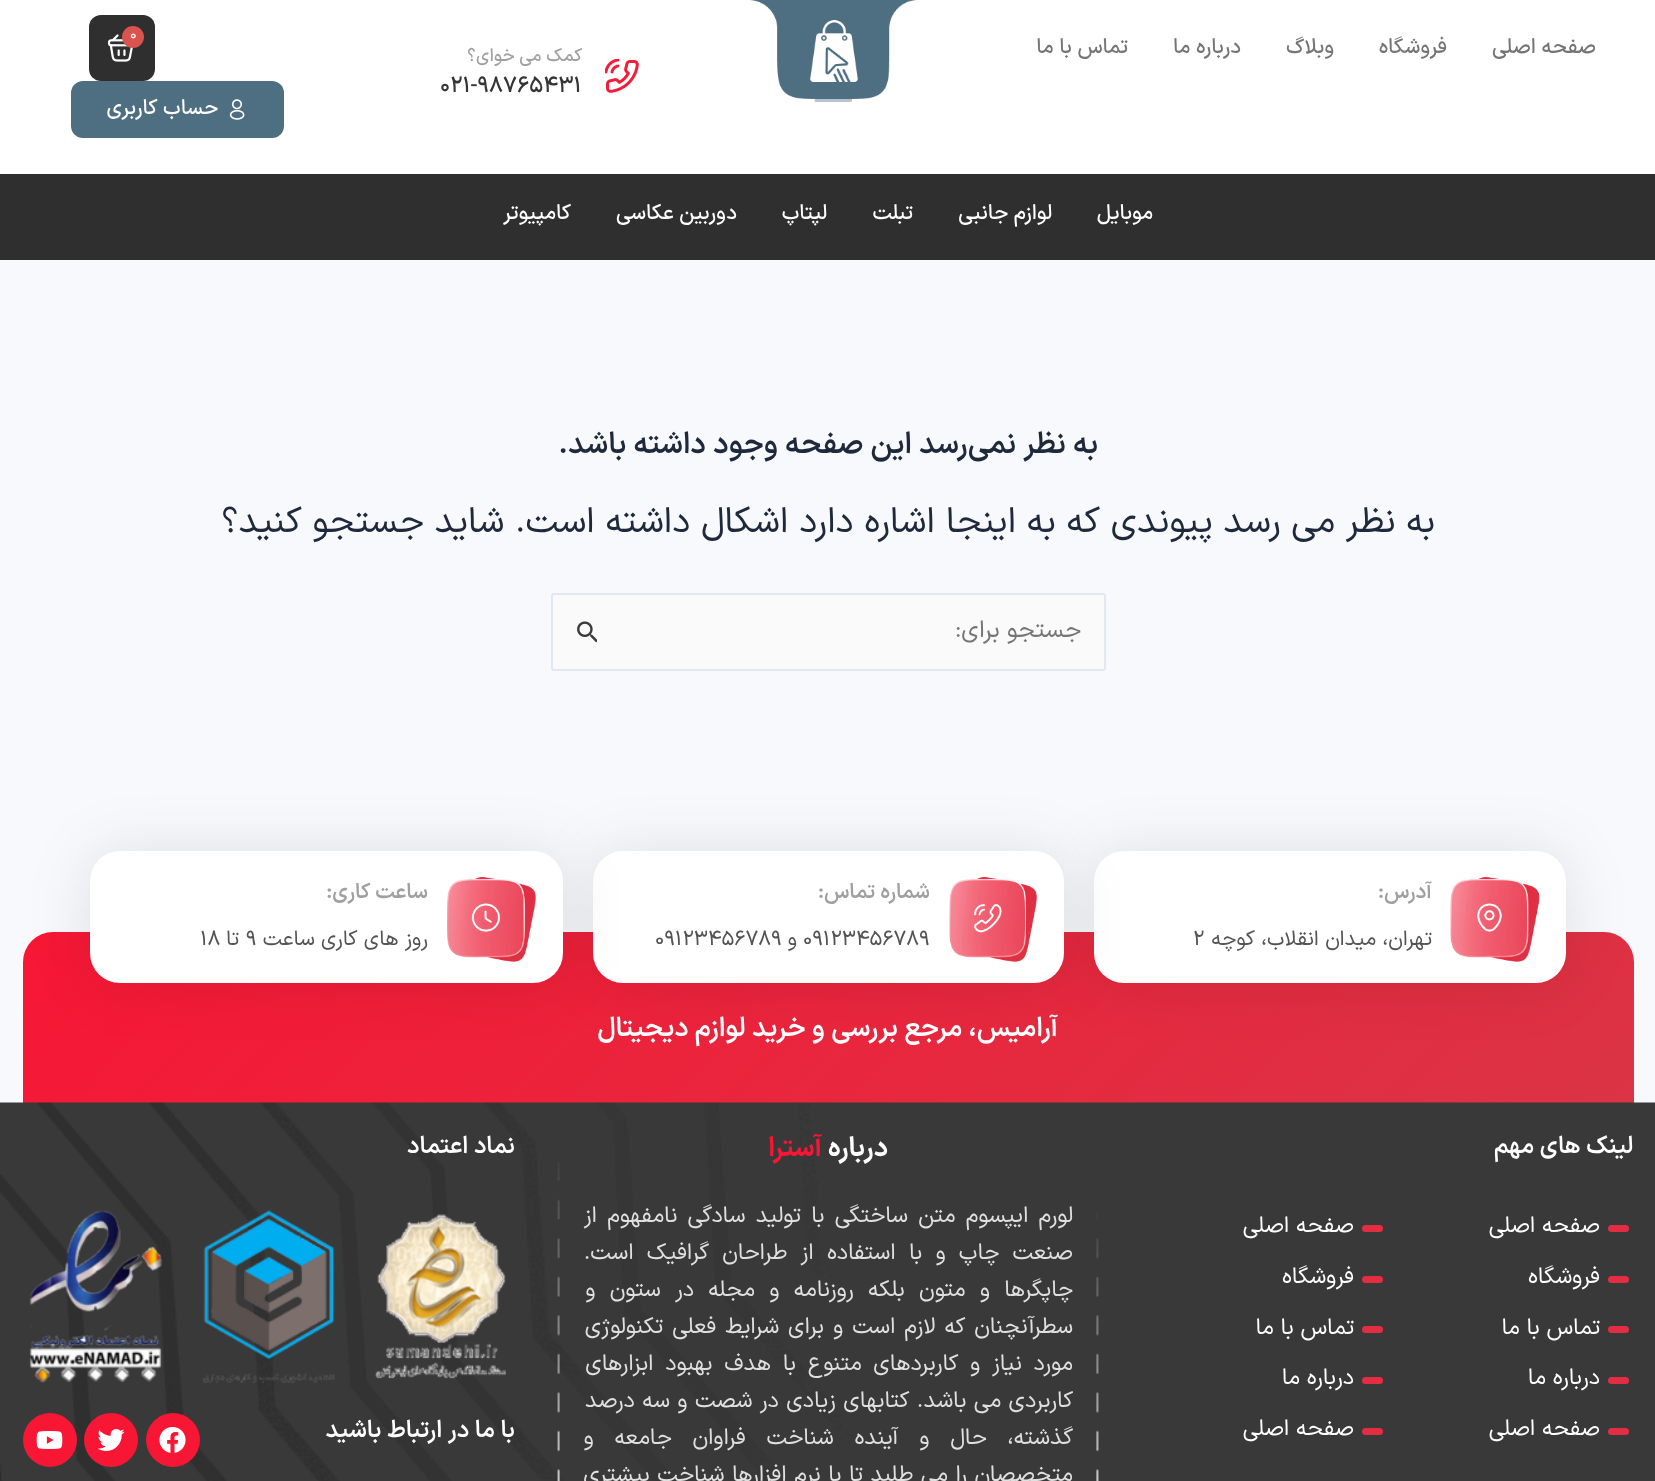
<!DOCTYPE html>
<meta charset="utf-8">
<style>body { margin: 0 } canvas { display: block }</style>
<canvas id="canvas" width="1655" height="1481"></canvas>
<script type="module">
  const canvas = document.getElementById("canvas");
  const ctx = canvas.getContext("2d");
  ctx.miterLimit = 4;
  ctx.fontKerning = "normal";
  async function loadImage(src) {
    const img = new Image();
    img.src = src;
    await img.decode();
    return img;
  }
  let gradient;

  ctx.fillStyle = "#f8f9fd";
  ctx.fillRect(0, 0, 1655, 1481);
  ctx.fillStyle = "#ffffff";
  ctx.fillRect(0, 0, 1655, 174);
  ctx.direction = "rtl";
  ctx.font = "500 21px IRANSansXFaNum";
  ctx.fillStyle = "#757575";
  ctx.fillText("صفحه اصلی", 1596, 53);
  ctx.fillText("فروشگاه", 1447, 53);
  ctx.fillText("وبلاگ", 1334, 53);
  ctx.fillText("درباره ما", 1241, 53);
  ctx.fillText("تماس با ما", 1128, 53);
  ctx.drawImage(await loadImage("img1.png"), 750, 0, 167, 102);
  ctx.drawImage(await loadImage("img2.png"), 605, 59, 34, 34);
  ctx.font = "500 18px IRANSansXFaNum";
  ctx.fillStyle = "#a0a0a0";
  ctx.fillText("کمک می خوای؟", 582, 61);
  ctx.direction = "ltr";
  ctx.font = "500 22.5px IRANSansXFaNum";
  ctx.fillStyle = "#353535";
  ctx.fillText("۰۲۱-۹۸۷۶۵۴۳۱", 440, 92);
  ctx.fillStyle = "#2f2f2f";
  ctx.beginPath();
  ctx.roundRect(89, 15, 66, 66, 12);
  ctx.fill();
  ctx.drawImage(await loadImage("img3.png"), 107, 34, 26, 28);
  ctx.fillStyle = "#d9534f";
  ctx.beginPath();
  ctx.arc(133, 37, 11, 0, Math.PI * 2);
  ctx.fill();
  ctx.font = "15px IRANSansXFaNum";
  ctx.fillStyle = "#ffffff";
  ctx.fillText("0", 130, 39);
  ctx.fillStyle = "#4e6e81";
  ctx.beginPath();
  ctx.roundRect(71, 81, 213, 57, 12);
  ctx.fill();
  ctx.drawImage(await loadImage("img4.png"), 229, 99, 16, 21);
  ctx.direction = "rtl";
  ctx.font = "500 21px IRANSansXFaNum";
  ctx.fillStyle = "#ffffff";
  ctx.fillText("حساب کاربری", 218, 114);
  ctx.fillStyle = "#2f2f2f";
  ctx.fillRect(0, 174, 1655, 86);
  ctx.fillStyle = "#ffffff";
  ctx.fillText("موبایل", 1153, 219);
  ctx.fillText("لوازم جانبی", 1052, 219);
  ctx.fillText("تبلت", 913, 219);
  ctx.fillText("لپتاپ", 827, 219);
  ctx.fillText("دوربین عکاسی", 737, 219);
  ctx.fillText("کامپیوتر", 571, 219);
  ctx.font = "600 30px IRANSansXFaNum";
  ctx.fillStyle = "#1e293b";
  ctx.fillText("به نظر نمی‌رسد این صفحه وجود داشته باشد.", 1098, 453);
  ctx.font = "36px IRANSansXFaNum";
  ctx.fillText("به نظر می رسد پیوندی که به اینجا اشاره دارد اشکال داشته است. شاید جستجو کنید؟", 1435, 532);
  ctx.fillStyle = "#fafafa";
  ctx.beginPath();
  ctx.roundRect(552, 594, 553, 76, 2);
  ctx.fill();
  ctx.strokeStyle = "#e2e8f0";
  ctx.lineWidth = 2;
  ctx.stroke();
  ctx.font = "24px IRANSansXFaNum";
  ctx.fillStyle = "#757575";
  ctx.fillText("جستجو برای:", 1081, 637);
  ctx.drawImage(await loadImage("img5.png"), 577, 621, 20, 22);
  gradient = ctx.createLinearGradient(382, 572, 1274, 1463);
  gradient.addColorStop(0, "#f71735");
  gradient.addColorStop(1, "#db3445");
  ctx.fillStyle = gradient;
  ctx.beginPath();
  ctx.roundRect(23, 932, 1611, 171, [30, 30, 0, 0]);
  ctx.fill();
  ctx.fillStyle = "rgba(0, 0, 0, 0.1)";
  ctx.filter = "blur(30px)";
  ctx.beginPath();
  ctx.roundRect(1094, 851, 472, 132, 30);
  ctx.fill();
  ctx.filter = "none";
  ctx.fillStyle = "#ffffff";
  ctx.beginPath();
  ctx.roundRect(1094, 851, 472, 132, 30);
  ctx.fill();
  ctx.drawImage(await loadImage("img6.png"), 1450, 877, 90, 85);
  ctx.font = "600 21px IRANSansXFaNum";
  ctx.fillStyle = "#a0a0a0";
  ctx.fillText("آدرس:", 1432, 898);
  ctx.font = "21px IRANSansXFaNum";
  ctx.fillStyle = "#545454";
  ctx.fillText("تهران، میدان انقلاب، کوچه", 1432, 945);
  ctx.direction = "ltr";
  ctx.fillText("۲", 1193, 945);
  ctx.fillStyle = "rgba(0, 0, 0, 0.1)";
  ctx.filter = "blur(30px)";
  ctx.beginPath();
  ctx.roundRect(593, 851, 471, 132, 30);
  ctx.fill();
  ctx.filter = "none";
  ctx.fillStyle = "#ffffff";
  ctx.beginPath();
  ctx.roundRect(593, 851, 471, 132, 30);
  ctx.fill();
  ctx.drawImage(await loadImage("img7.png"), 949, 877, 88, 85);
  ctx.direction = "rtl";
  ctx.font = "600 21px IRANSansXFaNum";
  ctx.fillStyle = "#a0a0a0";
  ctx.fillText("شماره تماس:", 930, 898);
  ctx.direction = "ltr";
  ctx.font = "21px IRANSansXFaNum";
  ctx.fillStyle = "#545454";
  ctx.fillText("۰۹۱۲۳۴۵۶۷۸۹", 803, 945);
  ctx.direction = "rtl";
  ctx.fillText("و", 797, 945);
  ctx.direction = "ltr";
  ctx.fillText("۰۹۱۲۳۴۵۶۷۸۹", 655, 945);
  ctx.fillStyle = "rgba(0, 0, 0, 0.1)";
  ctx.filter = "blur(30px)";
  ctx.beginPath();
  ctx.roundRect(90, 851, 473, 132, 30);
  ctx.fill();
  ctx.filter = "none";
  ctx.fillStyle = "#ffffff";
  ctx.beginPath();
  ctx.roundRect(90, 851, 473, 132, 30);
  ctx.fill();
  ctx.drawImage(await loadImage("img8.png"), 447, 877, 89, 85);
  ctx.direction = "rtl";
  ctx.font = "600 21px IRANSansXFaNum";
  ctx.fillStyle = "#a0a0a0";
  ctx.fillText("ساعت کاری:", 428, 898);
  ctx.font = "21px IRANSansXFaNum";
  ctx.fillStyle = "#545454";
  ctx.fillText("روز های کاری ساعت", 428, 945);
  ctx.direction = "ltr";
  ctx.fillText("۹", 246, 945);
  ctx.direction = "rtl";
  ctx.fillText("تا", 239, 945);
  ctx.direction = "ltr";
  ctx.fillText("۱۸", 200, 945);
  ctx.direction = "rtl";
  ctx.font = "600 27px IRANSansXFaNum";
  ctx.fillStyle = "#ffffff";
  ctx.fillText("آرامیس، مرجع بررسی و خرید لوازم دیجیتال", 1058, 1036);
  ctx.drawImage(await loadImage("img9.png"), 0, 1102, 1655, 379);
  ctx.drawImage(await loadImage("img10.png"), 1096, 1212, 3, 269);
  ctx.font = "600 24px IRANSansXFaNum";
  ctx.fillText("لینک های مهم", 1633, 1153);
  ctx.fillStyle = "#e32d42";
  ctx.beginPath();
  ctx.roundRect(1608, 1225, 21, 7, 3.5);
  ctx.fill();
  ctx.font = "22.5px IRANSansXFaNum";
  ctx.fillStyle = "#ffffff";
  ctx.fillText("صفحه اصلی", 1600, 1232);
  ctx.fillStyle = "#e32d42";
  ctx.beginPath();
  ctx.roundRect(1608, 1276, 21, 7, 3.5);
  ctx.fill();
  ctx.fillStyle = "#ffffff";
  ctx.fillText("فروشگاه", 1600, 1283);
  ctx.fillStyle = "#e32d42";
  ctx.beginPath();
  ctx.roundRect(1608, 1326, 21, 7, 3.5);
  ctx.fill();
  ctx.fillStyle = "#ffffff";
  ctx.fillText("تماس با ما", 1600, 1334);
  ctx.fillStyle = "#e32d42";
  ctx.beginPath();
  ctx.roundRect(1608, 1377, 21, 7, 3.5);
  ctx.fill();
  ctx.fillStyle = "#ffffff";
  ctx.fillText("درباره ما", 1600, 1384);
  ctx.fillStyle = "#e32d42";
  ctx.beginPath();
  ctx.roundRect(1608, 1428, 21, 7, 3.5);
  ctx.fill();
  ctx.fillStyle = "#ffffff";
  ctx.fillText("صفحه اصلی", 1600, 1435);
  ctx.fillStyle = "#e32d42";
  ctx.beginPath();
  ctx.roundRect(1362, 1225, 21, 7, 3.5);
  ctx.fill();
  ctx.fillStyle = "#ffffff";
  ctx.fillText("صفحه اصلی", 1354, 1232);
  ctx.fillStyle = "#e32d42";
  ctx.beginPath();
  ctx.roundRect(1362, 1276, 21, 7, 3.5);
  ctx.fill();
  ctx.fillStyle = "#ffffff";
  ctx.fillText("فروشگاه", 1354, 1283);
  ctx.fillStyle = "#e32d42";
  ctx.beginPath();
  ctx.roundRect(1362, 1326, 21, 7, 3.5);
  ctx.fill();
  ctx.fillStyle = "#ffffff";
  ctx.fillText("تماس با ما", 1354, 1334);
  ctx.fillStyle = "#e32d42";
  ctx.beginPath();
  ctx.roundRect(1362, 1377, 21, 7, 3.5);
  ctx.fill();
  ctx.fillStyle = "#ffffff";
  ctx.fillText("درباره ما", 1354, 1384);
  ctx.fillStyle = "#e32d42";
  ctx.beginPath();
  ctx.roundRect(1362, 1428, 21, 7, 3.5);
  ctx.fill();
  ctx.fillStyle = "#ffffff";
  ctx.fillText("صفحه اصلی", 1354, 1435);
  ctx.font = "bold 27px IRANSansXFaNum";
  ctx.fillText("درباره", 888, 1156);
  ctx.fillStyle = "#f71735";
  ctx.fillText("آسترا", 822, 1156);
  ctx.wordSpacing = "3.5px";
  ctx.font = "22.5px IRANSansXFaNum";
  ctx.fillStyle = "#e0e0e0";
  ctx.fillText("لورم ایپسوم متن ساختگی با تولید سادگی نامفهوم از", 1073, 1222);
  ctx.wordSpacing = "6.5px";
  ctx.fillText("صنعت چاپ و با استفاده از طراحان گرافیک است.", 1073, 1259);
  ctx.wordSpacing = "7.5px";
  ctx.fillText("چاپگرها و متون بلکه روزنامه و مجله در ستون و", 1073, 1296);
  ctx.wordSpacing = "2.25px";
  ctx.fillText("سطرآنچنان که لازم است و برای شرایط فعلی تکنولوژی", 1073, 1333);
  ctx.wordSpacing = "5px";
  ctx.fillText("مورد نیاز و کاربردهای متنوع با هدف بهبود ابزارهای", 1073, 1370);
  ctx.wordSpacing = "0.75px";
  ctx.fillText("کاربردی می باشد. کتابهای زیادی در شصت و سه درصد", 1073, 1407);
  ctx.wordSpacing = "14px";
  ctx.fillText("گذشته، حال و آینده شناخت فراوان جامعه و", 1073, 1444);
  ctx.wordSpacing = "0.75px";
  ctx.fillText("متخصصان را می طلبد تا با نرم افزارها شناخت بیشتری", 1073, 1481);
  ctx.drawImage(await loadImage("img11.png"), 557, 1162, 3, 319);
  ctx.wordSpacing = "0px";
  ctx.font = "600 24px IRANSansXFaNum";
  ctx.fillStyle = "#ffffff";
  ctx.fillText("نماد اعتماد", 515, 1153);
  ctx.drawImage(await loadImage("img12.png"), 375, 1214, 131, 165);
  ctx.drawImage(await loadImage("img13.png"), 202, 1210, 133, 173);
  ctx.drawImage(await loadImage("img14.png"), 29, 1210, 134, 173);
  ctx.fillText("با ما در ارتباط باشید", 515, 1437);
  ctx.fillStyle = "#f71735";
  ctx.beginPath();
  ctx.arc(173, 1440, 27, 0, Math.PI * 2);
  ctx.fill();
  ctx.drawImage(await loadImage("img15.png"), 159, 1427, 27, 26);
  ctx.beginPath();
  ctx.arc(111, 1440, 27, 0, Math.PI * 2);
  ctx.fill();
  ctx.drawImage(await loadImage("img16.png"), 98, 1429, 27, 22);
  ctx.beginPath();
  ctx.arc(50, 1440, 27, 0, Math.PI * 2);
  ctx.fill();
  ctx.drawImage(await loadImage("img17.png"), 36, 1431, 27, 18);
</script>
